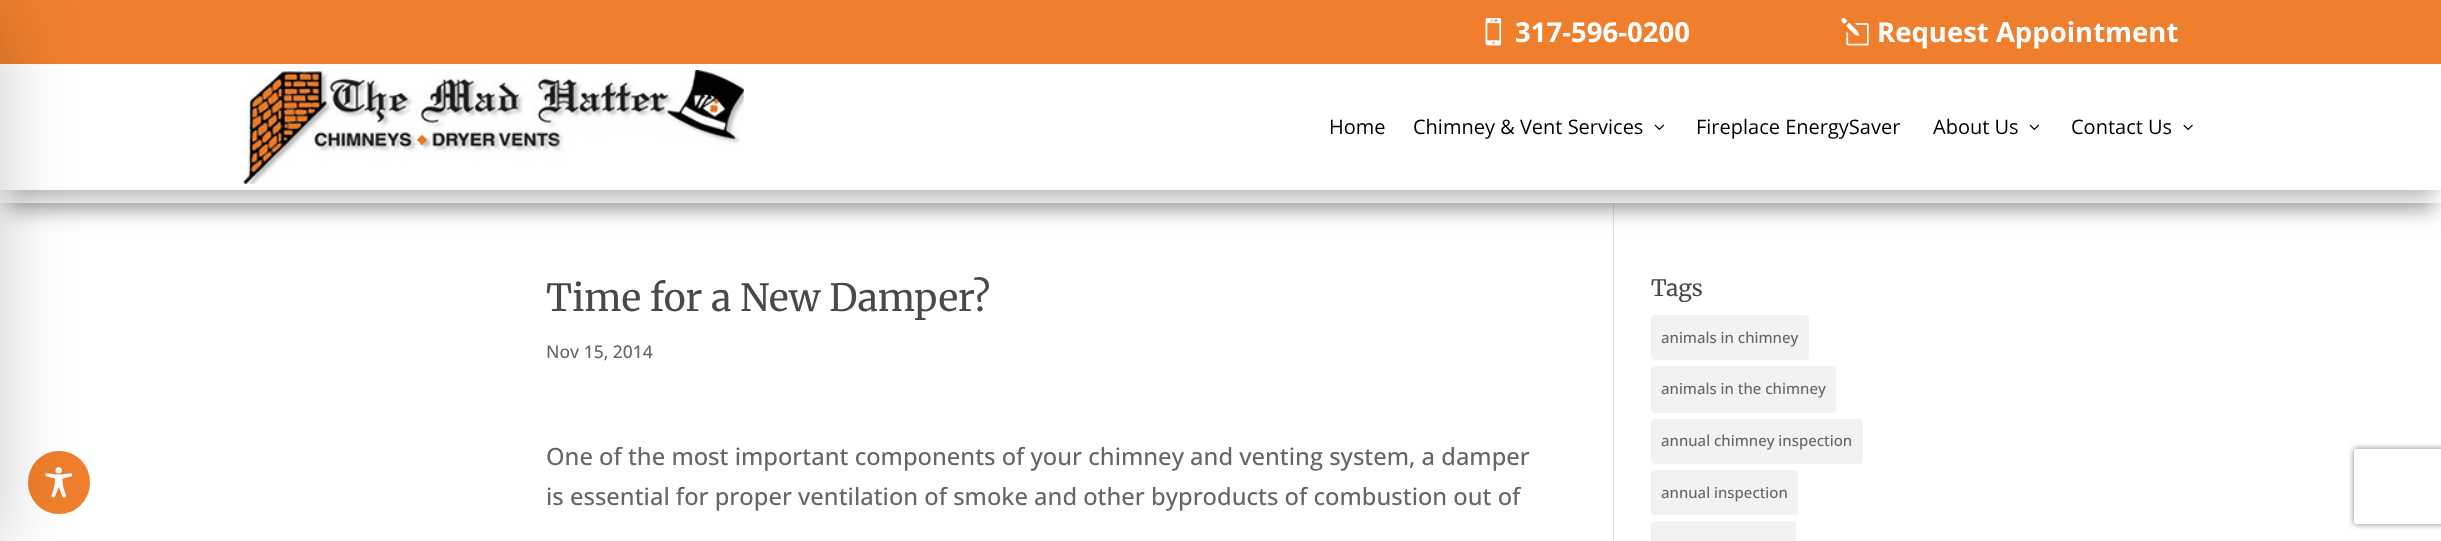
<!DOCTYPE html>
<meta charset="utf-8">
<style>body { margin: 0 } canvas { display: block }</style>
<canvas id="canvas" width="2441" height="541"></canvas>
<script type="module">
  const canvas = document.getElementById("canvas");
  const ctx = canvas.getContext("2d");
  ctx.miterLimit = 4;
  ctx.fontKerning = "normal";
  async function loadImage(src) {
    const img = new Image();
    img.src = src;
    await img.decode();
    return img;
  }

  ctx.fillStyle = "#ffffff";
  ctx.fillRect(0, 0, 2441, 541);
  ctx.fillStyle = "#ef7f2c";
  ctx.fillRect(0, 0, 2441, 64);
  ctx.fillStyle = "#e2e2e2";
  ctx.fillRect(1613, 203, 1, 338);
  ctx.fillStyle = "rgba(0, 0, 0, 0.3)";
  ctx.filter = "blur(11px)";
  ctx.beginPath();
  ctx.rect(8, 86, 2426, 124);
  ctx.fill();
  ctx.filter = "none";
  ctx.fillStyle = "#ffffff";
  ctx.fillRect(0, 190, 2441, 13);
  ctx.fillStyle = "rgba(0, 0, 0, 0.3)";
  ctx.filter = "blur(11px)";
  ctx.beginPath();
  ctx.rect(8, 86, 2426, 112);
  ctx.fill();
  ctx.filter = "none";
  ctx.fillStyle = "#ffffff";
  ctx.fillRect(0, 64, 2441, 126);
  ctx.fillStyle = "#ef7f2c";
  ctx.beginPath();
  ctx.roundRect(28, 451, 62, 63, 31);
  ctx.fill();
  ctx.drawImage(await loadImage("img6.png"), 45, 467, 28, 31);
  ctx.fillStyle = "rgba(0, 0, 0, 0.2)";
  ctx.filter = "blur(37.5px)";
  ctx.beginPath();
  ctx.rect(-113, 13, 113, 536);
  ctx.fill();
  ctx.filter = "none";
  ctx.drawImage(await loadImage("img1.png"), 1485, 18, 17, 28);
  ctx.font = "bold 27.5px Open Sans";
  ctx.fillStyle = "#ffffff";
  ctx.fillText("317-596-0200", 1515, 42);
  ctx.drawImage(await loadImage("img2.png"), 1841, 18, 28, 28);
  ctx.fillText("Request Appointment", 1877, 42);
  ctx.drawImage(await loadImage("img3.png"), 243, 70, 501, 114);
  ctx.font = "20px Open Sans";
  ctx.fillStyle = "#000000";
  ctx.fillText("Home", 1329, 134);
  ctx.fillText("Chimney & Vent Services", 1413, 134);
  ctx.drawImage(await loadImage("img4.png"), 1654, 124, 10, 6);
  ctx.fillText("Fireplace EnergySaver", 1696, 134);
  ctx.fillText("About Us", 1933, 134);
  ctx.drawImage(await loadImage("img4.png"), 2029, 124, 10, 6);
  ctx.fillText("Contact Us", 2071, 134);
  ctx.drawImage(await loadImage("img5.png"), 2183, 124, 10, 6);
  ctx.font = "300 37.5px Merriweather";
  ctx.fillStyle = "#494949";
  ctx.fillText("Time for a New Damper?", 546, 311);
  ctx.font = "500 17.5px Open Sans";
  ctx.fillStyle = "#666666";
  ctx.fillText("Nov 15, 2014", 546, 358);
  ctx.font = "500 23.75px Open Sans";
  ctx.fillText("One of the most important components of your chimney and venting system, a damper", 546, 465);
  ctx.fillText("is essential for proper ventilation of smoke and other byproducts of combustion out of", 546, 505);
  ctx.font = "300 22.5px Merriweather";
  ctx.fillStyle = "#494949";
  ctx.fillText("Tags", 1651, 296);
  ctx.fillStyle = "#f2f2f2";
  ctx.beginPath();
  ctx.roundRect(1651, 315, 158, 45, 4);
  ctx.fill();
  ctx.font = "500 15px Open Sans";
  ctx.fillStyle = "#666666";
  ctx.fillText("animals in chimney", 1661, 343);
  ctx.fillStyle = "#f2f2f2";
  ctx.beginPath();
  ctx.roundRect(1651, 366, 185, 47, 4);
  ctx.fill();
  ctx.fillStyle = "#666666";
  ctx.fillText("animals in the chimney", 1661, 394);
  ctx.fillStyle = "#f2f2f2";
  ctx.beginPath();
  ctx.roundRect(1651, 419, 212, 45, 4);
  ctx.fill();
  ctx.fillStyle = "#666666";
  ctx.fillText("annual chimney inspection", 1661, 446);
  ctx.fillStyle = "#f2f2f2";
  ctx.beginPath();
  ctx.roundRect(1651, 470, 147, 45, 4);
  ctx.fill();
  ctx.fillStyle = "#666666";
  ctx.fillText("annual inspection", 1661, 498);
  ctx.fillStyle = "#f2f2f2";
  ctx.beginPath();
  ctx.roundRect(1651, 521, 145, 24, 4);
  ctx.fill();
  ctx.save();
  ctx.beginPath();
  ctx.moveTo(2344, 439);
  ctx.lineTo(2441, 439);
  ctx.lineTo(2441, 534);
  ctx.lineTo(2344, 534);
  ctx.closePath();
  ctx.moveTo(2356.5, 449);
  ctx.lineTo(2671.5, 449);
  ctx.bezierCurveTo(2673, 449, 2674, 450, 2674, 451.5);
  ctx.lineTo(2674, 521.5);
  ctx.bezierCurveTo(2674, 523, 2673, 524, 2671.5, 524);
  ctx.lineTo(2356.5, 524);
  ctx.bezierCurveTo(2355, 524, 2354, 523, 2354, 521.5);
  ctx.lineTo(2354, 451.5);
  ctx.bezierCurveTo(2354, 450, 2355, 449, 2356.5, 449);
  ctx.closePath();
  ctx.clip("evenodd");
  ctx.fillStyle = "#808080";
  ctx.filter = "blur(3px)";
  ctx.beginPath();
  ctx.roundRect(2354, 449, 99, 75, 2.5);
  ctx.fill();
  ctx.filter = "none";
  ctx.restore();
</script>
